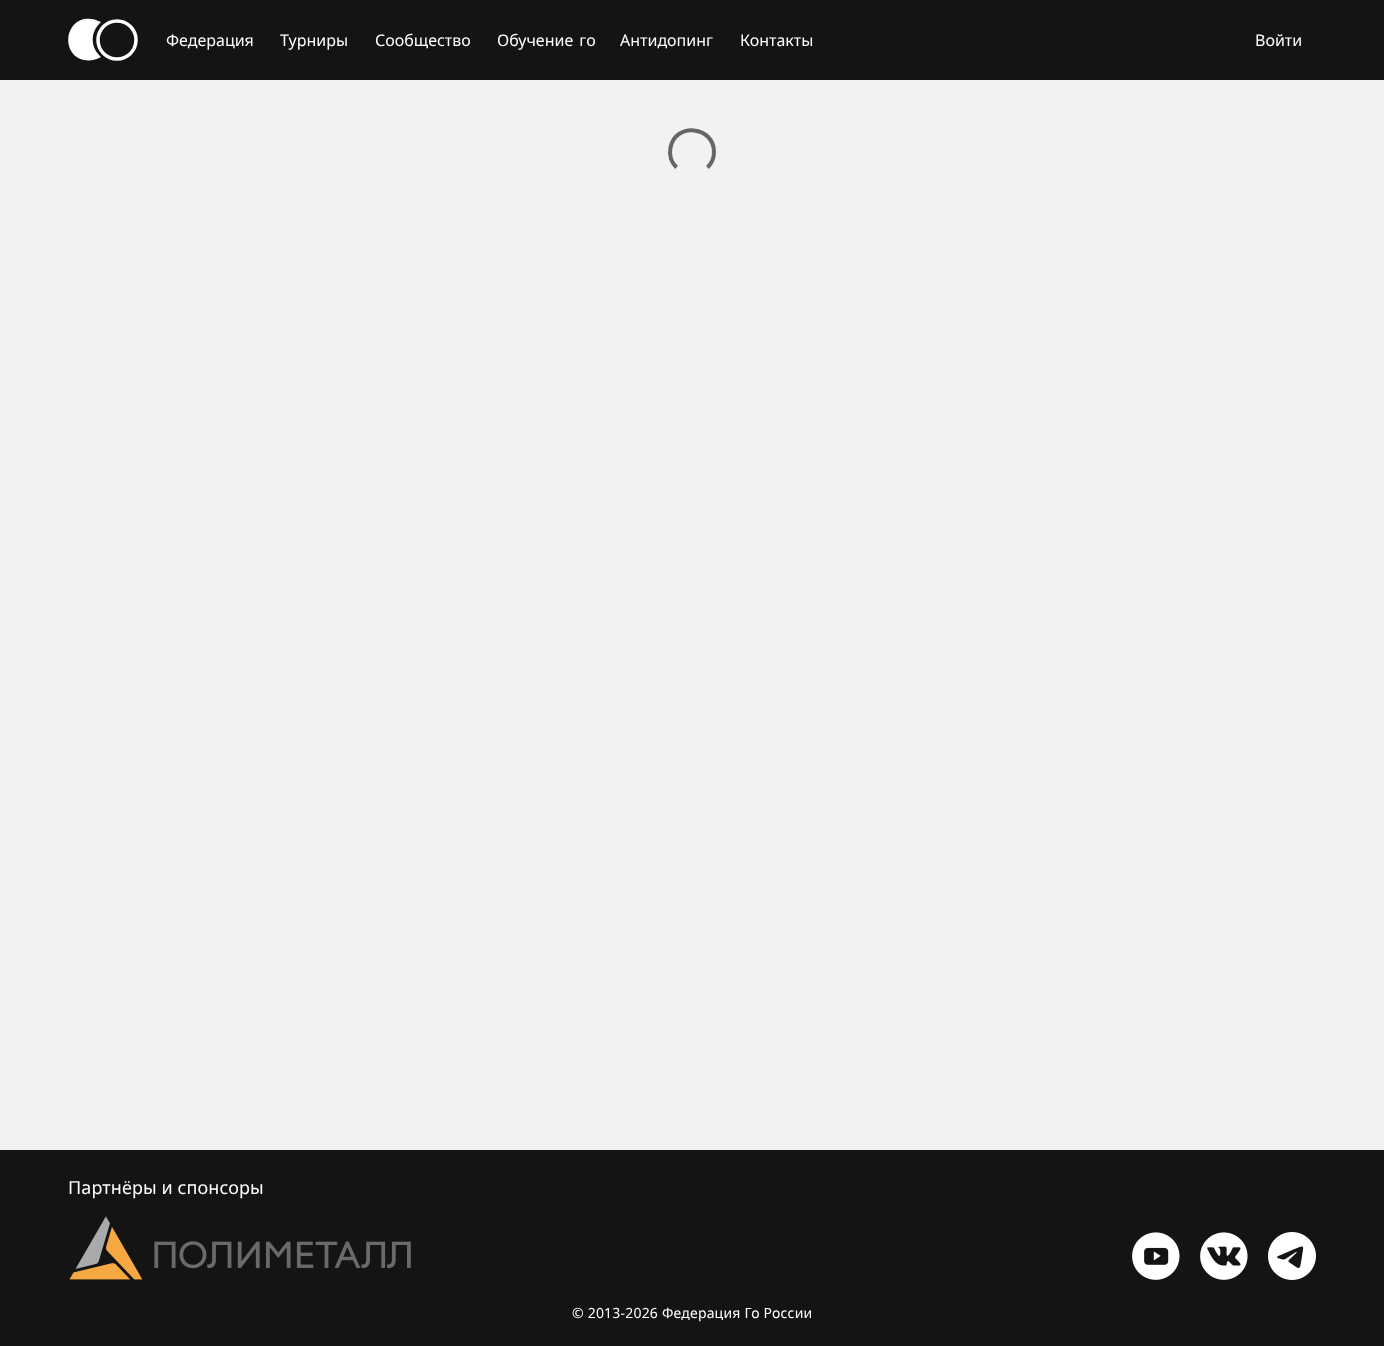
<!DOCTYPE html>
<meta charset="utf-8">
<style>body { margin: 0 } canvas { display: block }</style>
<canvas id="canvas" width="1384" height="1346"></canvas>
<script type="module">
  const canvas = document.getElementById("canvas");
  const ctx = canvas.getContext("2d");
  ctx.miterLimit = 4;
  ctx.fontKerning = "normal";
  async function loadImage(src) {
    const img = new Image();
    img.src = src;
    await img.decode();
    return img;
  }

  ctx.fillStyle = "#f4f2f1";
  ctx.fillRect(0, 0, 1384, 1346);
  ctx.fillStyle = "#141414";
  ctx.fillRect(0, 0, 1384, 80);
  ctx.fillStyle = "#ffffff";
  ctx.beginPath();
  ctx.moveTo(101, 22);
  ctx.bezierCurveTo(95, 19, 90, 18, 84, 19);
  ctx.bezierCurveTo(63, 24, 63, 56, 84, 60);
  ctx.bezierCurveTo(90, 61, 96, 60, 101, 57);
  ctx.bezierCurveTo(90, 47, 90, 32, 101, 22);
  ctx.closePath();
  ctx.fill();
  ctx.beginPath();
  ctx.arc(117, 40, 19, 0, Math.PI * 2);
  ctx.strokeStyle = "#ffffff";
  ctx.lineWidth = 3.5;
  ctx.stroke();
  ctx.font = "16px Noto Sans";
  ctx.fillText("Федерация", 166, 46);
  ctx.fillText("Турниры", 280, 46);
  ctx.fillText("Сообщество", 375, 46);
  ctx.wordSpacing = "2px";
  ctx.fillText("Обучение го", 497, 46);
  ctx.wordSpacing = "0px";
  ctx.fillText("Антидопинг", 620, 46);
  ctx.fillText("Контакты", 740, 46);
  ctx.fillText("Войти", 1255, 46);
  ctx.beginPath();
  ctx.moveTo(676.5, 167.5);
  ctx.bezierCurveTo(671.5, 162.5, 669, 155, 670.5, 147.5);
  ctx.bezierCurveTo(675.5, 122, 714, 126, 714, 152);
  ctx.bezierCurveTo(714, 158, 711.5, 163.5, 707.5, 167.5);
  ctx.strokeStyle = "#666666";
  ctx.lineWidth = 4;
  ctx.stroke();
  ctx.fillStyle = "#141414";
  ctx.fillRect(0, 1150, 1384, 196);
  ctx.letterSpacing = "0.1px";
  ctx.font = "18px Noto Sans";
  ctx.fillStyle = "#ffffff";
  ctx.fillText("Партнёры и спонсоры", 68, 1194);
  ctx.drawImage(await loadImage("img1.png"), 69, 1216, 342, 64);
  ctx.drawImage(await loadImage("img2.png"), 1132, 1232, 48, 48);
  ctx.drawImage(await loadImage("img3.png"), 1200, 1232, 48, 48);
  ctx.drawImage(await loadImage("img4.png"), 1268, 1232, 48, 48);
  ctx.letterSpacing = "0.2px";
  ctx.font = "14px Noto Sans";
  ctx.fillText("© 2013-2026 Федерация Го России", 572, 1318);
</script>
